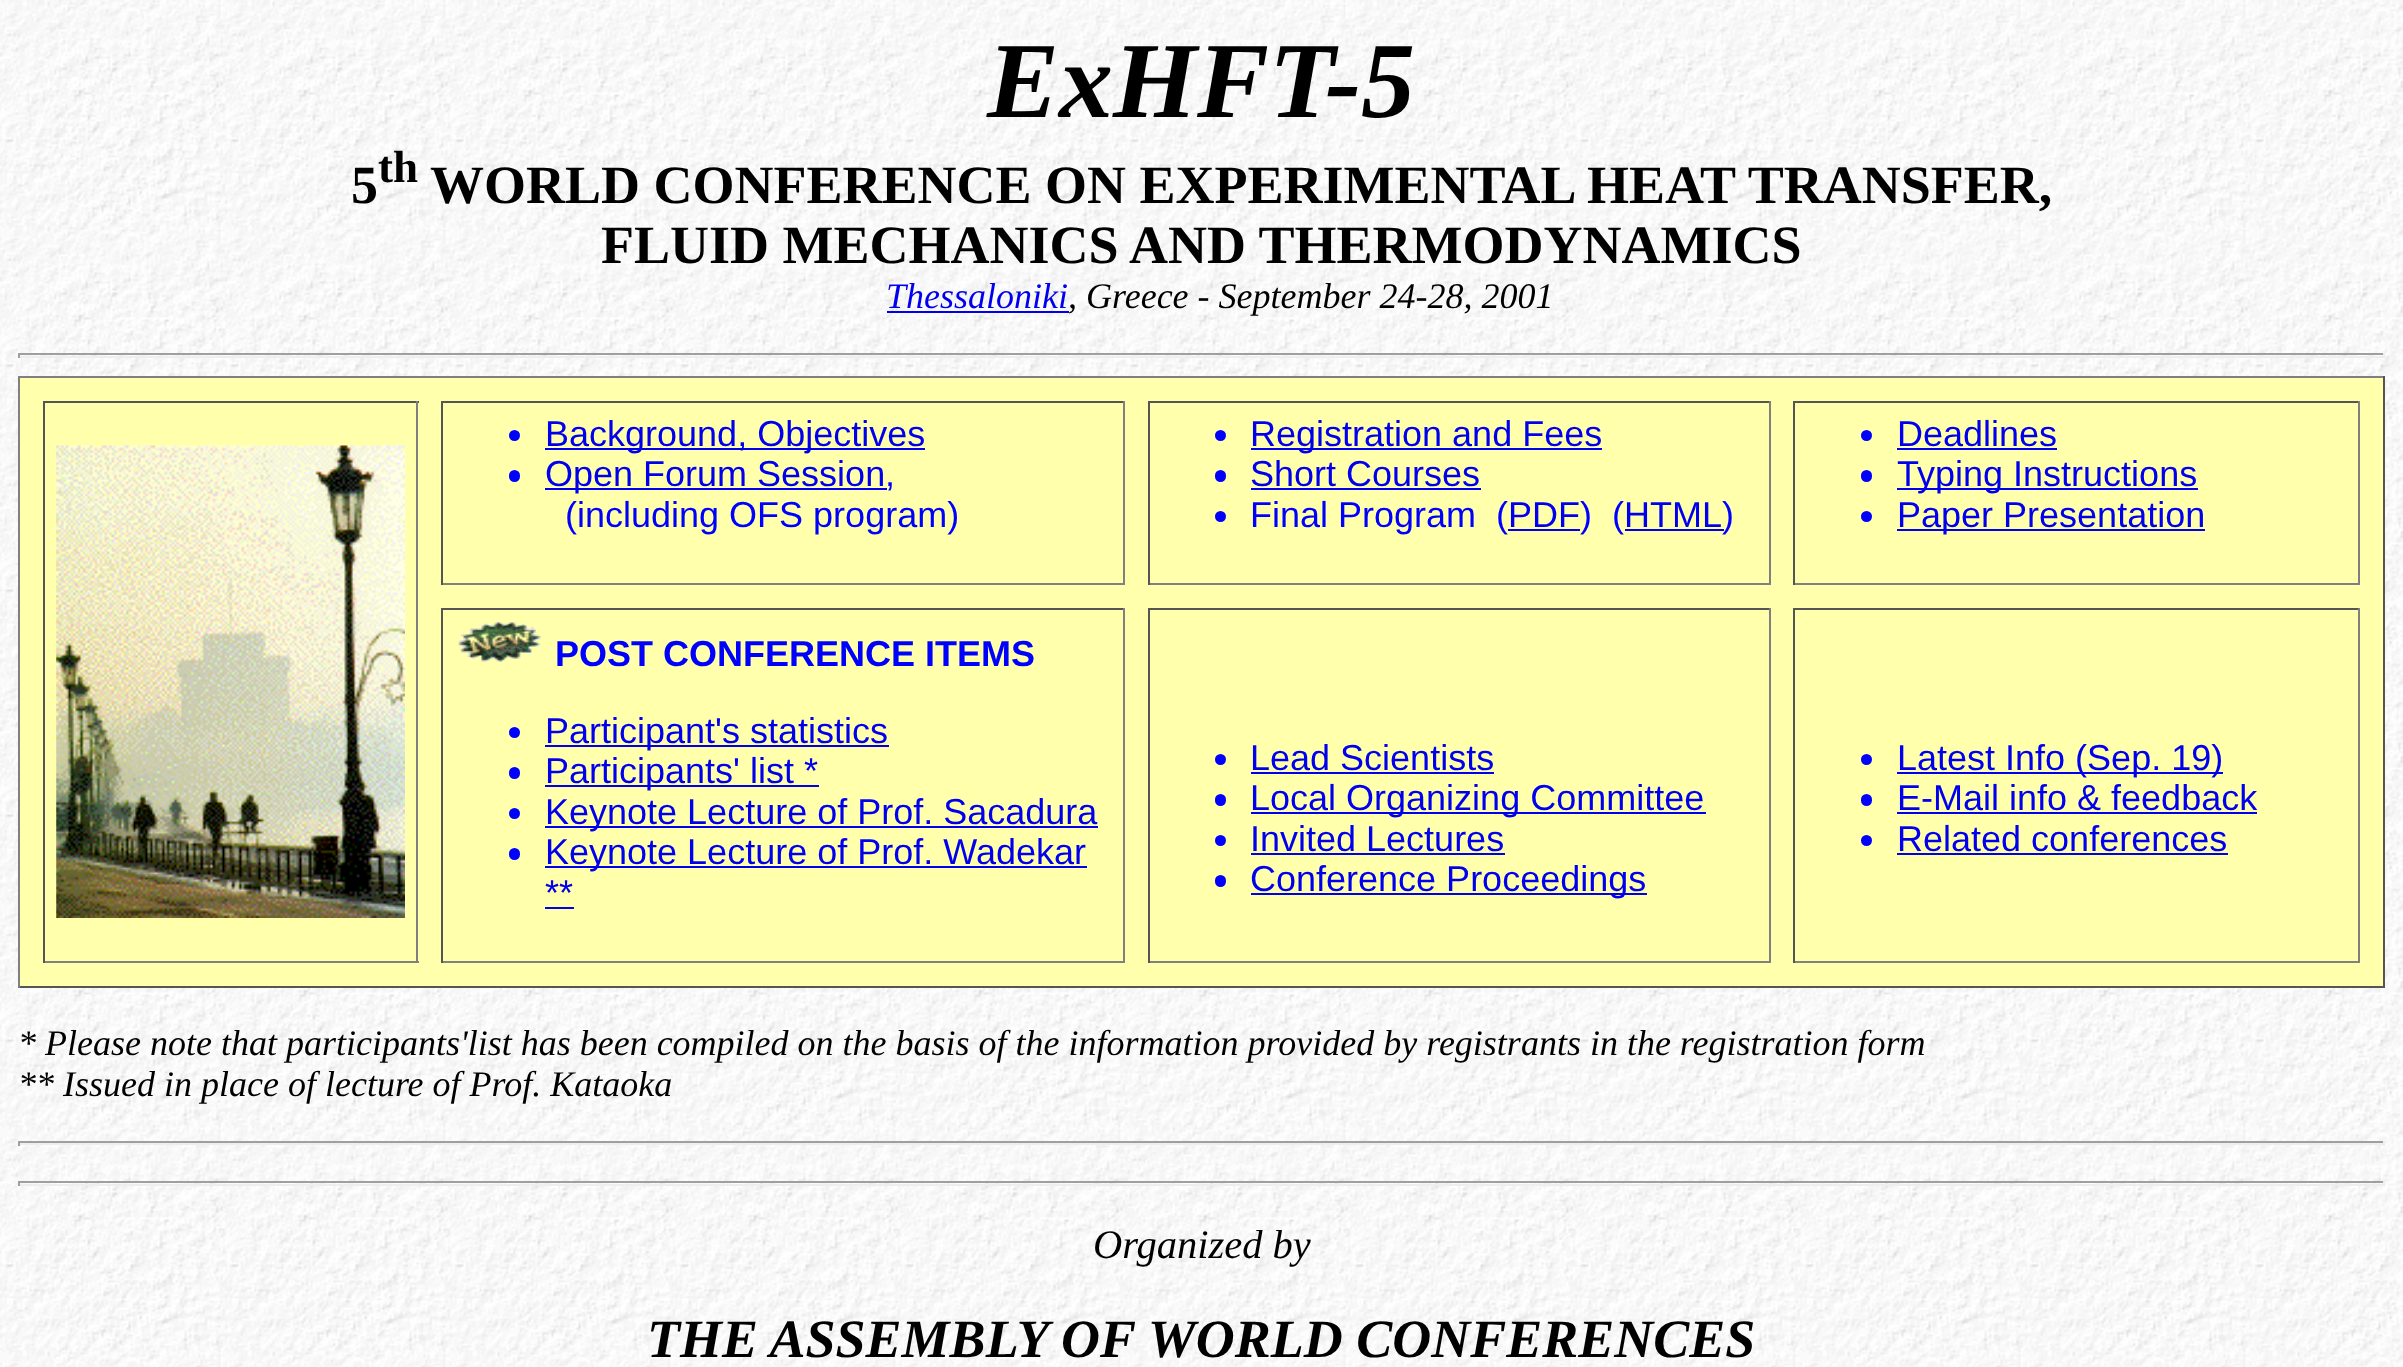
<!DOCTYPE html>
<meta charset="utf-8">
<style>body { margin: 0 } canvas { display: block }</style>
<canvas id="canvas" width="2403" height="1367"></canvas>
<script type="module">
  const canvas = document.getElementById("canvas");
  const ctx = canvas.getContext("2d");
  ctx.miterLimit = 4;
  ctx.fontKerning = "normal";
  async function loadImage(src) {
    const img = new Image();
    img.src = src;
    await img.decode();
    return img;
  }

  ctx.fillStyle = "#ffffff";
  ctx.fillRect(0, 0, 2403, 1367);
  ctx.drawImage(await loadImage("img1.png"), 0, 0, 2403, 1367);
  ctx.font = "italic bold 108px Liberation Serif";
  ctx.fillStyle = "#000000";
  ctx.fillText("ExHFT-5", 987, 117);
  ctx.font = "bold 54px Liberation Serif";
  ctx.fillText("5", 351, 203);
  ctx.font = "bold 45px Liberation Serif";
  ctx.fillText("th", 378, 182);
  ctx.font = "bold 54px Liberation Serif";
  ctx.fillText("WORLD CONFERENCE ON EXPERIMENTAL HEAT TRANSFER,", 430, 203);
  ctx.fillText("FLUID MECHANICS AND THERMODYNAMICS", 601, 263);
  ctx.font = "italic 36px Liberation Serif";
  ctx.fillStyle = "#0000ee";
  ctx.fillText("Thessaloniki", 886, 308);
  ctx.fillRect(887, 311, 182, 2);
  ctx.fillStyle = "#000000";
  ctx.fillText(", Greece - September 24-28, 2001", 1068, 308);
  ctx.fillStyle = "#9f9f9f";
  ctx.fillRect(18, 353, 2367, 2);
  ctx.fillStyle = "#eeeeee";
  ctx.fillRect(2383, 353, 2, 5);
  ctx.fillRect(18, 356, 2367, 2);
  ctx.fillStyle = "#9f9f9f";
  ctx.fillRect(18, 353, 2, 5);
  ctx.fillStyle = "#ffffac";
  ctx.fillRect(20, 378, 2363, 608);
  ctx.fillStyle = "#808080";
  ctx.fillRect(18, 376, 2367, 2);
  ctx.fillStyle = "#555555";
  ctx.fillRect(2383, 376, 2, 612);
  ctx.fillRect(18, 986, 2367, 2);
  ctx.fillStyle = "#808080";
  ctx.fillRect(18, 376, 2, 612);
  ctx.fillStyle = "#555555";
  ctx.fillRect(43, 401, 376, 2);
  ctx.fillStyle = "#808080";
  ctx.fillRect(416, 401, 2, 562);
  ctx.fillRect(43, 961, 376, 2);
  ctx.fillStyle = "#555555";
  ctx.fillRect(43, 401, 2, 562);
  ctx.drawImage(await loadImage("img2.png"), 56, 445, 349, 473);
  ctx.fillRect(441, 401, 684, 2);
  ctx.fillStyle = "#808080";
  ctx.fillRect(1123, 401, 2, 184);
  ctx.fillRect(441, 583, 684, 2);
  ctx.fillStyle = "#555555";
  ctx.fillRect(441, 401, 2, 184);
  ctx.fillStyle = "#0000ff";
  ctx.beginPath();
  ctx.arc(514.5, 435.5, 5.5, 0, Math.PI * 2);
  ctx.fill();
  ctx.fillStyle = "#0000ee";
  ctx.fillRect(545, 448, 380, 2);
  ctx.font = "36px Liberation Sans";
  ctx.fillText("Background, Objectives", 545, 446);
  ctx.fillStyle = "#0000ff";
  ctx.beginPath();
  ctx.roundRect(509, 470, 11, 12, 5.5);
  ctx.fill();
  ctx.fillStyle = "#0000ee";
  ctx.fillRect(545, 488, 342, 2);
  ctx.fillText("Open Forum Session", 545, 486);
  ctx.fillStyle = "#0000ff";
  ctx.fillText(",", 885, 486);
  ctx.fillText("(including OFS program)", 565, 527);
  ctx.fillStyle = "#555555";
  ctx.fillRect(1148, 401, 623, 2);
  ctx.fillStyle = "#808080";
  ctx.fillRect(1769, 401, 2, 184);
  ctx.fillRect(1148, 583, 623, 2);
  ctx.fillStyle = "#555555";
  ctx.fillRect(1148, 401, 2, 184);
  ctx.fillStyle = "#0000ff";
  ctx.beginPath();
  ctx.arc(1220.5, 435.5, 5.5, 0, Math.PI * 2);
  ctx.fill();
  ctx.fillStyle = "#0000ee";
  ctx.fillRect(1251, 448, 351, 2);
  ctx.fillText("Registration and Fees", 1250, 446);
  ctx.fillStyle = "#0000ff";
  ctx.beginPath();
  ctx.roundRect(1215, 470, 11, 12, 5.5);
  ctx.fill();
  ctx.fillStyle = "#0000ee";
  ctx.fillText("Short Courses", 1250, 486);
  ctx.fillRect(1251, 488, 230, 2);
  ctx.fillStyle = "#0000ff";
  ctx.beginPath();
  ctx.arc(1220.5, 516.5, 5.5, 0, Math.PI * 2);
  ctx.fill();
  ctx.fillText("Final Program  (", 1250, 527);
  ctx.fillStyle = "#0000ee";
  ctx.fillText("PDF", 1508, 527);
  ctx.fillRect(1508, 529, 72, 2);
  ctx.fillStyle = "#0000ff";
  ctx.fillText(")", 1580, 527);
  ctx.fillText("(", 1612, 527);
  ctx.fillStyle = "#0000ee";
  ctx.fillText("HTML", 1624, 527);
  ctx.fillRect(1625, 529, 99, 2);
  ctx.fillStyle = "#0000ff";
  ctx.fillText(")", 1722, 527);
  ctx.fillStyle = "#555555";
  ctx.fillRect(1793, 401, 567, 2);
  ctx.fillStyle = "#808080";
  ctx.fillRect(2358, 401, 2, 184);
  ctx.fillRect(1793, 583, 567, 2);
  ctx.fillStyle = "#555555";
  ctx.fillRect(1793, 401, 2, 184);
  ctx.fillStyle = "#0000ff";
  ctx.beginPath();
  ctx.arc(1866.5, 435.5, 5.5, 0, Math.PI * 2);
  ctx.fill();
  ctx.fillStyle = "#0000ee";
  ctx.fillText("Deadlines", 1897, 446);
  ctx.fillRect(1897, 448, 160, 2);
  ctx.fillStyle = "#0000ff";
  ctx.beginPath();
  ctx.roundRect(1861, 470, 11, 12, 5.5);
  ctx.fill();
  ctx.fillStyle = "#0000ee";
  ctx.fillRect(1897, 488, 301, 2);
  ctx.fillText("Typing Instructions", 1897, 486);
  ctx.fillStyle = "#0000ff";
  ctx.beginPath();
  ctx.arc(1866.5, 516.5, 5.5, 0, Math.PI * 2);
  ctx.fill();
  ctx.fillStyle = "#0000ee";
  ctx.fillRect(1897, 529, 308, 2);
  ctx.fillText("Paper Presentation", 1897, 527);
  ctx.fillStyle = "#555555";
  ctx.fillRect(441, 608, 684, 2);
  ctx.fillStyle = "#808080";
  ctx.fillRect(1123, 608, 2, 355);
  ctx.fillRect(441, 961, 684, 2);
  ctx.fillStyle = "#555555";
  ctx.fillRect(441, 608, 2, 355);
  ctx.drawImage(await loadImage("img3.png"), 458, 622, 83, 40);
  ctx.font = "bold 36px Liberation Sans";
  ctx.fillStyle = "#0000ff";
  ctx.fillText("POST CONFERENCE ITEMS", 555, 666);
  ctx.beginPath();
  ctx.arc(514.5, 732.5, 5.5, 0, Math.PI * 2);
  ctx.fill();
  ctx.fillStyle = "#0000ee";
  ctx.fillRect(545, 745, 344, 2);
  ctx.font = "36px Liberation Sans";
  ctx.fillText("Participant's statistics", 545, 743);
  ctx.fillStyle = "#0000ff";
  ctx.beginPath();
  ctx.roundRect(509, 767, 11, 12, 5.5);
  ctx.fill();
  ctx.fillStyle = "#0000ee";
  ctx.fillRect(545, 785, 274, 2);
  ctx.fillText("Participants' list *", 545, 783);
  ctx.fillStyle = "#0000ff";
  ctx.beginPath();
  ctx.arc(514.5, 813.5, 5.5, 0, Math.PI * 2);
  ctx.fill();
  ctx.fillStyle = "#0000ee";
  ctx.fillRect(545, 826, 553, 2);
  ctx.fillText("Keynote Lecture of Prof. Sacadura", 545, 824);
  ctx.fillStyle = "#0000ff";
  ctx.beginPath();
  ctx.roundRect(509, 848, 11, 12, 5.5);
  ctx.fill();
  ctx.fillStyle = "#0000ee";
  ctx.fillRect(545, 866, 542, 2);
  ctx.fillText("Keynote Lecture of Prof. Wadekar", 545, 864);
  ctx.fillText("**", 545, 905);
  ctx.fillRect(545, 907, 29, 2);
  ctx.fillStyle = "#555555";
  ctx.fillRect(1148, 608, 623, 2);
  ctx.fillStyle = "#808080";
  ctx.fillRect(1769, 608, 2, 355);
  ctx.fillRect(1148, 961, 623, 2);
  ctx.fillStyle = "#555555";
  ctx.fillRect(1148, 608, 2, 355);
  ctx.fillStyle = "#0000ff";
  ctx.beginPath();
  ctx.arc(1220.5, 759.5, 5.5, 0, Math.PI * 2);
  ctx.fill();
  ctx.fillStyle = "#0000ee";
  ctx.fillText("Lead Scientists", 1250, 770);
  ctx.fillRect(1251, 772, 243, 2);
  ctx.fillStyle = "#0000ff";
  ctx.beginPath();
  ctx.roundRect(1215, 794, 11, 12, 5.5);
  ctx.fill();
  ctx.fillStyle = "#0000ee";
  ctx.fillRect(1251, 812, 455, 2);
  ctx.fillText("Local Organizing Committee", 1250, 810);
  ctx.fillStyle = "#0000ff";
  ctx.beginPath();
  ctx.arc(1220.5, 840.5, 5.5, 0, Math.PI * 2);
  ctx.fill();
  ctx.fillStyle = "#0000ee";
  ctx.fillText("Invited Lectures", 1250, 851);
  ctx.fillRect(1251, 853, 254, 2);
  ctx.fillStyle = "#0000ff";
  ctx.beginPath();
  ctx.roundRect(1215, 875, 11, 12, 5.5);
  ctx.fill();
  ctx.fillStyle = "#0000ee";
  ctx.fillRect(1251, 893, 396, 2);
  ctx.fillText("Conference Proceedings", 1250, 891);
  ctx.fillStyle = "#555555";
  ctx.fillRect(1793, 608, 567, 2);
  ctx.fillStyle = "#808080";
  ctx.fillRect(2358, 608, 2, 355);
  ctx.fillRect(1793, 961, 567, 2);
  ctx.fillStyle = "#555555";
  ctx.fillRect(1793, 608, 2, 355);
  ctx.fillStyle = "#0000ff";
  ctx.beginPath();
  ctx.arc(1866.5, 759.5, 5.5, 0, Math.PI * 2);
  ctx.fill();
  ctx.fillStyle = "#0000ee";
  ctx.fillRect(1897, 772, 326, 2);
  ctx.fillText("Latest Info (Sep. 19)", 1897, 770);
  ctx.fillStyle = "#0000ff";
  ctx.beginPath();
  ctx.roundRect(1861, 794, 11, 12, 5.5);
  ctx.fill();
  ctx.fillStyle = "#0000ee";
  ctx.fillText("E-Mail info & feedback", 1897, 810);
  ctx.fillRect(1897, 812, 360, 2);
  ctx.fillStyle = "#0000ff";
  ctx.beginPath();
  ctx.arc(1866.5, 840.5, 5.5, 0, Math.PI * 2);
  ctx.fill();
  ctx.fillStyle = "#0000ee";
  ctx.fillText("Related conferences", 1897, 851);
  ctx.fillRect(1897, 853, 331, 2);
  ctx.font = "italic 36px Liberation Serif";
  ctx.fillStyle = "#000000";
  ctx.fillText("* Please note that participants'list has been compiled on the basis of the information provided by registrants in the registration form", 18, 1055);
  ctx.fillText("** Issued in place of lecture of Prof. Kataoka", 18, 1096);
  ctx.fillStyle = "#9f9f9f";
  ctx.fillRect(18, 1141, 2367, 2);
  ctx.fillStyle = "#eeeeee";
  ctx.fillRect(2383, 1141, 2, 5);
  ctx.fillRect(18, 1143, 2367, 2);
  ctx.fillStyle = "#9f9f9f";
  ctx.fillRect(18, 1141, 2, 5);
  ctx.fillRect(18, 1181, 2367, 2);
  ctx.fillStyle = "#eeeeee";
  ctx.fillRect(2383, 1181, 2, 5);
  ctx.fillRect(18, 1184, 2367, 2);
  ctx.fillStyle = "#9f9f9f";
  ctx.fillRect(18, 1181, 2, 5);
  ctx.font = "italic 40.5px Liberation Serif";
  ctx.fillStyle = "#000000";
  ctx.fillText("Organized by", 1093, 1258);
  ctx.font = "italic bold 54px Liberation Serif";
  ctx.fillText("THE ASSEMBLY OF WORLD CONFERENCES", 647, 1357);
</script>
